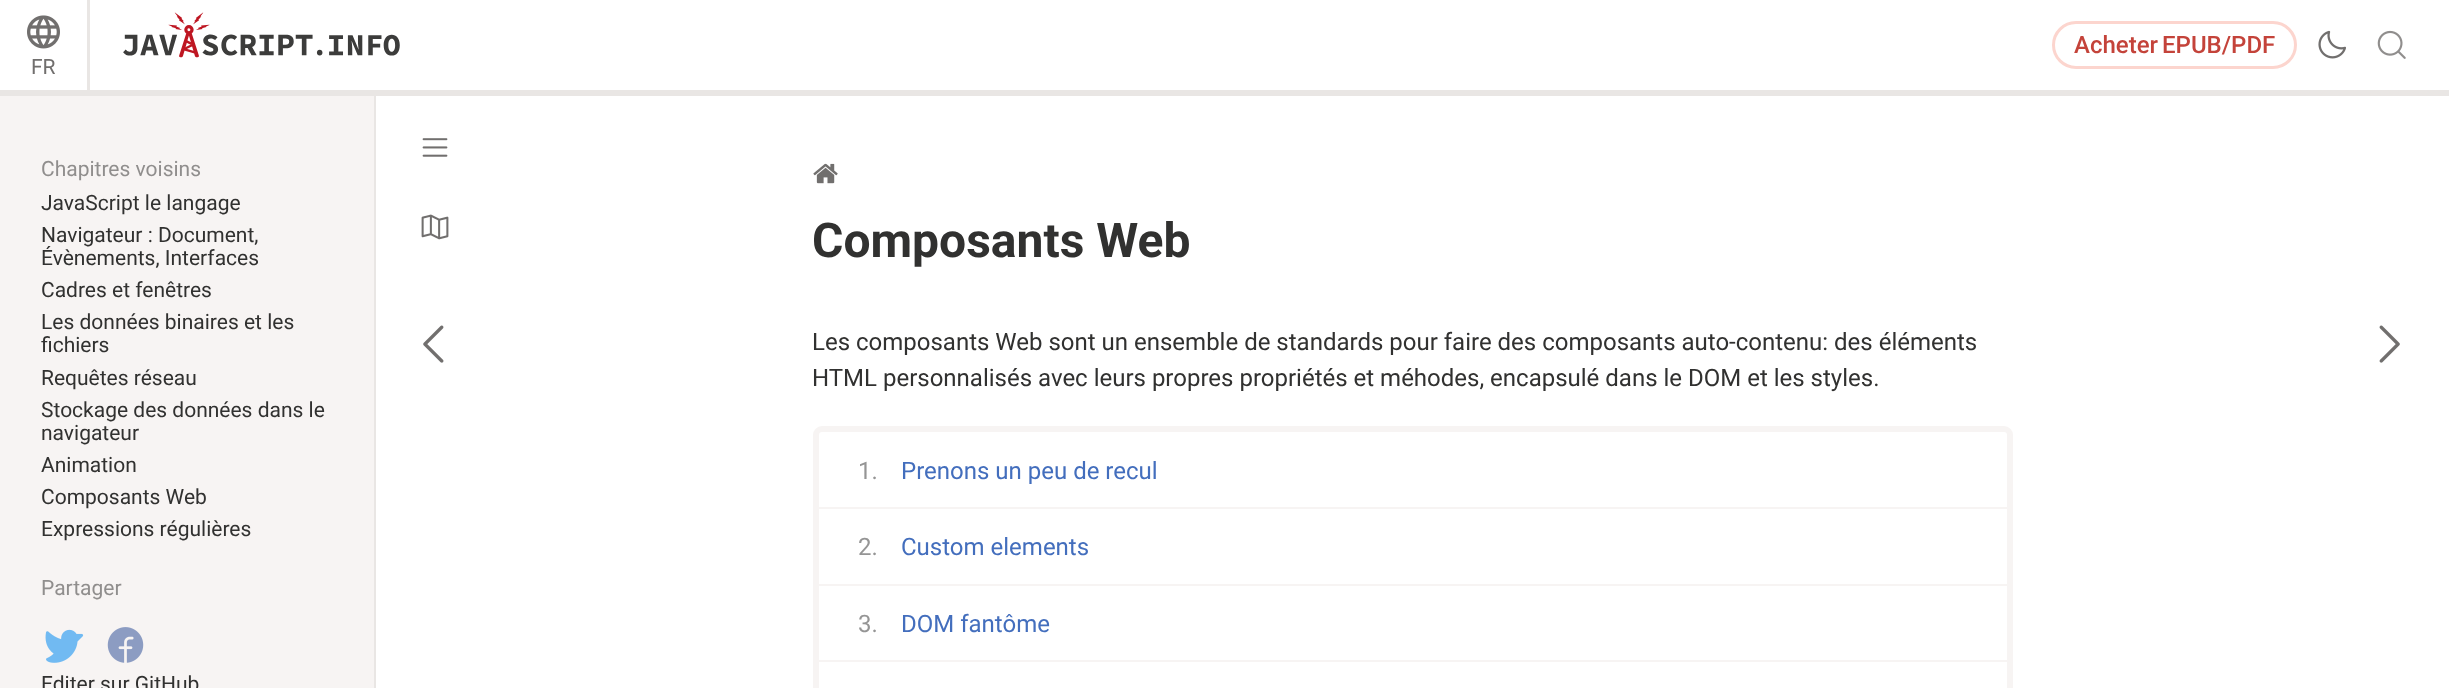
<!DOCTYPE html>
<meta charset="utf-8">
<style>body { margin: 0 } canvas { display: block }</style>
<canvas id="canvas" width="2449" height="688"></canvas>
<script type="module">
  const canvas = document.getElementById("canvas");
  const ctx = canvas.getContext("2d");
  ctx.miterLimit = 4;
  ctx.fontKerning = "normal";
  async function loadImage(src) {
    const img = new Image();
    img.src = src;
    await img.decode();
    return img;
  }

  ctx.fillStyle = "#ffffff";
  ctx.fillRect(0, 0, 2449, 688);
  ctx.fillStyle = "#e9e6e4";
  ctx.fillRect(0, 90, 2449, 6);
  ctx.drawImage(await loadImage("img1.png"), 123, 12, 277, 46);
  ctx.beginPath();
  ctx.roundRect(2053.5, 22.5, 242, 45, 22.5);
  ctx.strokeStyle = "#fcd5ce";
  ctx.lineWidth = 3;
  ctx.stroke();
  ctx.font = "500 24px Roboto";
  ctx.fillStyle = "#c4433a";
  ctx.fillText("Acheter", 2074, 53);
  ctx.fillText("EPUB/PDF", 2162, 53);
  ctx.drawImage(await loadImage("img2.png"), 2318, 30, 28, 29);
  ctx.drawImage(await loadImage("img3.png"), 2377, 30, 29, 29);
  ctx.fillStyle = "#e9e6e4";
  ctx.fillRect(87, 0, 3, 90);
  ctx.drawImage(await loadImage("img4.png"), 27, 15, 33, 34);
  ctx.font = "21px Roboto";
  ctx.fillStyle = "#716f6e";
  ctx.fillText("FR", 31, 74);
  ctx.fillStyle = "#f7f4f3";
  ctx.fillRect(0, 96, 374, 592);
  ctx.fillStyle = "#e9e6e4";
  ctx.fillRect(374, 96, 2, 592);
  ctx.drawImage(await loadImage("img5.png"), 422, 138, 26, 19);
  ctx.fillStyle = "#908e8d";
  ctx.fillText("Chapitres voisins", 41, 176);
  ctx.fillStyle = "#313130";
  ctx.fillText("JavaScript le langage", 41, 210);
  ctx.fillText("Navigateur : Document,", 41, 242);
  ctx.fillText("Évènements, Interfaces", 41, 265);
  ctx.fillText("Cadres et fenêtres", 41, 297);
  ctx.fillText("Les données binaires et les", 41, 329);
  ctx.fillText("fichiers", 41, 352);
  ctx.fillText("Requêtes réseau", 41, 385);
  ctx.fillText("Stockage des données dans le", 41, 417);
  ctx.fillText("navigateur", 41, 440);
  ctx.fillText("Animation", 41, 472);
  ctx.fillText("Composants Web", 41, 504);
  ctx.fillText("Expressions régulières", 41, 536);
  ctx.fillStyle = "#908e8d";
  ctx.fillText("Partager", 41, 595);
  ctx.drawImage(await loadImage("img6.png"), 45, 629, 39, 34);
  ctx.drawImage(await loadImage("img7.png"), 107, 627, 37, 36);
  ctx.fillStyle = "#313130";
  ctx.fillText("Editer sur GitHub", 41, 691);
  ctx.drawImage(await loadImage("img8.png"), 421, 214, 28, 26);
  ctx.drawImage(await loadImage("img9.png"), 813, 163, 25, 21);
  ctx.font = "bold 48px Roboto";
  ctx.fillText("Composants Web", 812, 257);
  ctx.drawImage(await loadImage("img10.png"), 423, 325, 21, 38);
  ctx.drawImage(await loadImage("img11.png"), 2379, 325, 21, 38);
  ctx.font = "24px Roboto";
  ctx.fillText("Les composants Web sont un ensemble de standards pour faire des composants auto-contenu: des éléments", 812, 350);
  ctx.fillText("HTML personnalisés avec leurs propres propriétés et méhodes, encapsulé dans le DOM et les styles.", 812, 386);
  ctx.beginPath();
  ctx.roundRect(816, 429, 1194, 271, 6);
  ctx.strokeStyle = "#f7f4f3";
  ctx.lineWidth = 6;
  ctx.stroke();
  ctx.fillStyle = "#f7f4f3";
  ctx.fillRect(819, 507, 1188, 2);
  ctx.fillStyle = "#959595";
  ctx.fillText("1.", 858, 479);
  ctx.fillStyle = "#436ebd";
  ctx.fillText("Prenons un peu de recul", 901, 479);
  ctx.fillStyle = "#f7f4f3";
  ctx.fillRect(819, 584, 1188, 2);
  ctx.fillStyle = "#959595";
  ctx.fillText("2.", 858, 555);
  ctx.fillStyle = "#436ebd";
  ctx.fillText("Custom elements", 901, 555);
  ctx.fillStyle = "#f7f4f3";
  ctx.fillRect(819, 660, 1188, 2);
  ctx.fillStyle = "#959595";
  ctx.fillText("3.", 858, 632);
  ctx.fillStyle = "#436ebd";
  ctx.fillText("DOM fantôme", 901, 632);
</script>
